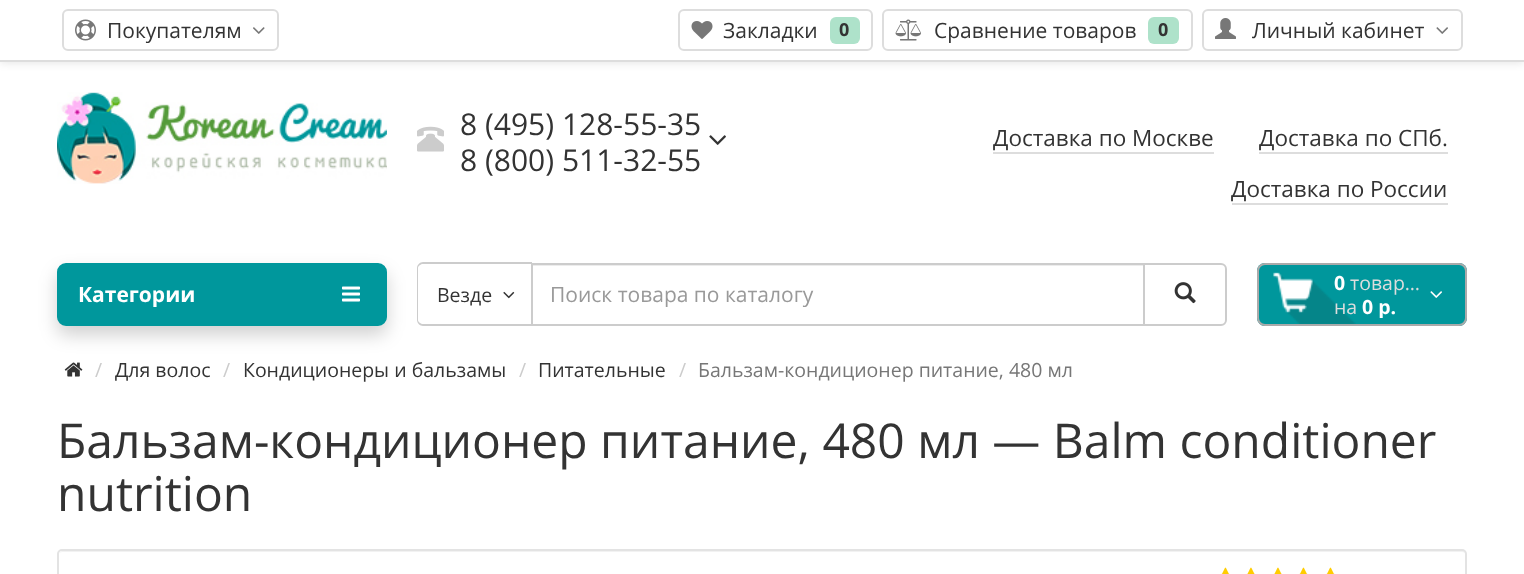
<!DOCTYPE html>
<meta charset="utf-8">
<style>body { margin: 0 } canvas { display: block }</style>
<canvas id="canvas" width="1524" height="574"></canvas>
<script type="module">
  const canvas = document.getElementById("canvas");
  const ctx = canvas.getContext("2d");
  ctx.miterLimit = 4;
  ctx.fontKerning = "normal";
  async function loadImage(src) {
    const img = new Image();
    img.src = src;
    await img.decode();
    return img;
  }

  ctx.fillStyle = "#ffffff";
  ctx.fillRect(0, 0, 1524, 574);
  ctx.fillStyle = "rgba(0, 0, 0, 0.1)";
  ctx.filter = "blur(4px)";
  ctx.beginPath();
  ctx.rect(0, 2, 1524, 61);
  ctx.fill();
  ctx.filter = "none";
  ctx.fillStyle = "#ffffff";
  ctx.fillRect(0, 0, 1524, 60);
  ctx.fillStyle = "#dddddd";
  ctx.fillRect(0, 60, 1524, 2);
  ctx.beginPath();
  ctx.roundRect(63, 10, 215, 40, 5);
  ctx.strokeStyle = "#dddddd";
  ctx.lineWidth = 2;
  ctx.stroke();
  ctx.drawImage(await loadImage("img1.png"), 75, 19, 21, 22);
  ctx.font = "21px Open Sans";
  ctx.fillStyle = "#333333";
  ctx.fillText("Покупателям", 107, 38);
  ctx.drawImage(await loadImage("img2.png"), 253, 27, 12, 7);
  ctx.beginPath();
  ctx.roundRect(679, 10, 193, 40, 5);
  ctx.stroke();
  ctx.drawImage(await loadImage("img3.png"), 691, 21, 22, 18);
  ctx.fillText("Закладки", 723, 38);
  ctx.fillStyle = "#aee2ca";
  ctx.beginPath();
  ctx.roundRect(830, 17, 30, 27, 6);
  ctx.fill();
  ctx.font = "bold 18px Open Sans";
  ctx.fillStyle = "#333333";
  ctx.fillText("0", 839, 36);
  ctx.beginPath();
  ctx.roundRect(883, 10, 309, 40, 5);
  ctx.stroke();
  ctx.drawImage(await loadImage("img4.png"), 895, 19, 26, 22);
  ctx.font = "21px Open Sans";
  ctx.fillText("Сравнение товаров", 934, 38);
  ctx.fillStyle = "#aee2ca";
  ctx.beginPath();
  ctx.roundRect(1148, 17, 31, 27, 6);
  ctx.fill();
  ctx.font = "bold 18px Open Sans";
  ctx.fillStyle = "#333333";
  ctx.fillText("0", 1158, 36);
  ctx.beginPath();
  ctx.roundRect(1203, 10, 259, 40, 5);
  ctx.stroke();
  ctx.drawImage(await loadImage("img5.png"), 1215, 18, 21, 21);
  ctx.font = "21px Open Sans";
  ctx.fillText("Личный кабинет", 1252, 38);
  ctx.drawImage(await loadImage("img6.png"), 1436, 27, 12, 7);
  ctx.drawImage(await loadImage("img7.png"), 57, 92, 330, 92);
  ctx.drawImage(await loadImage("img8.png"), 417, 126, 27, 26);
  ctx.font = "30px Open Sans";
  ctx.fillText("8 (495) 128-55-35", 460, 135);
  ctx.fillText("8 (800) 511-32-55", 460, 171);
  ctx.drawImage(await loadImage("img9.png"), 709, 135, 17, 10);
  ctx.font = "22.5px Open Sans";
  ctx.fillText("Доставка по Москве", 993, 146);
  ctx.fillStyle = "#dddddd";
  ctx.fillRect(993, 152, 221, 2);
  ctx.fillStyle = "#333333";
  ctx.fillText("Доставка по СПб.", 1259, 146);
  ctx.fillStyle = "#dddddd";
  ctx.fillRect(1259, 152, 189, 2);
  ctx.fillStyle = "#333333";
  ctx.fillText("Доставка по России", 1231, 197);
  ctx.fillStyle = "#dddddd";
  ctx.fillRect(1232, 203, 216, 2);
  ctx.drawImage(await loadImage("img15.png"), 64, 362, 19, 15);
  ctx.fillStyle = "rgba(0, 0, 0, 0.18)";
  ctx.filter = "blur(9px)";
  ctx.beginPath();
  ctx.roundRect(57, 272, 330, 63, 9);
  ctx.fill();
  ctx.filter = "none";
  ctx.fillStyle = "#00979c";
  ctx.beginPath();
  ctx.roundRect(58, 264, 328, 61, 8);
  ctx.fill();
  ctx.strokeStyle = "#00979c";
  ctx.stroke();
  ctx.font = "bold 21px Open Sans";
  ctx.fillStyle = "#ffffff";
  ctx.fillText("Категории", 78, 302);
  ctx.drawImage(await loadImage("img10.png"), 342, 286, 18, 16);
  ctx.fillStyle = "#cccccc";
  ctx.beginPath();
  ctx.moveTo(423, 262);
  ctx.lineTo(532, 262);
  ctx.lineTo(532, 326);
  ctx.lineTo(423, 326);
  ctx.bezierCurveTo(420, 326, 417, 323, 417, 320);
  ctx.lineTo(417, 268);
  ctx.bezierCurveTo(417, 265, 420, 262, 423, 262);
  ctx.closePath();
  ctx.moveTo(423, 264);
  ctx.lineTo(532, 264);
  ctx.lineTo(532, 324);
  ctx.lineTo(423, 324);
  ctx.bezierCurveTo(421, 324, 418, 322, 418, 320);
  ctx.lineTo(418, 268);
  ctx.bezierCurveTo(418, 266, 421, 264, 423, 264);
  ctx.closePath();
  ctx.fill("evenodd");
  ctx.font = "19.5px Open Sans";
  ctx.fillStyle = "#333333";
  ctx.fillText("Везде", 437, 302);
  ctx.drawImage(await loadImage("img11.png"), 503, 291, 12, 8);
  ctx.fillStyle = "#ececec";
  ctx.fillRect(533, 265, 610, 1);
  ctx.strokeStyle = "#cccccc";
  ctx.strokeRect(532, 264, 612, 61);
  ctx.font = "21px Open Sans";
  ctx.fillStyle = "#999999";
  ctx.fillText("Поиск товара по каталогу", 550, 302);
  ctx.fillStyle = "#ffffff";
  ctx.beginPath();
  ctx.roundRect(1144, 264, 82, 61, [0, 5, 5, 0]);
  ctx.fill();
  ctx.stroke();
  ctx.drawImage(await loadImage("img12.png"), 1174, 282, 22, 22);
  ctx.fillStyle = "#00979c";
  ctx.beginPath();
  ctx.roundRect(1257, 263, 210, 63, 8);
  ctx.fill();
  ctx.drawImage(await loadImage("img13.png"), 1273, 272, 83, 52);
  ctx.beginPath();
  ctx.roundRect(1258, 264, 208, 61, 7);
  ctx.strokeStyle = "#aaaaaa";
  ctx.stroke();
  ctx.font = "bold 19.5px Open Sans";
  ctx.fillStyle = "#ffffff";
  ctx.fillText("0", 1334, 290);
  ctx.font = "19.5px Open Sans";
  ctx.fillStyle = "#dddddd";
  ctx.fillText("товар…", 1350, 290);
  ctx.fillText("на", 1334, 314);
  ctx.save();
  ctx.beginPath();
  ctx.rect(1334, 294, 87, 24);
  ctx.clip();
  ctx.font = "bold 19.5px Open Sans";
  ctx.fillStyle = "#ffffff";
  ctx.fillText("0 р.", 1362, 314);
  ctx.restore();
  ctx.drawImage(await loadImage("img14.png"), 1430, 291, 12, 7);
  ctx.fillStyle = "#cccccc";
  ctx.fillText("/", 95, 377);
  ctx.fillStyle = "#333333";
  ctx.fillText("Для волос", 115, 377);
  ctx.fillStyle = "#cccccc";
  ctx.fillText("/", 223, 377);
  ctx.fillStyle = "#333333";
  ctx.fillText("Кондиционеры и бальзамы", 243, 377);
  ctx.fillStyle = "#cccccc";
  ctx.fillText("/", 519, 377);
  ctx.fillStyle = "#333333";
  ctx.fillText("Питательные", 538, 377);
  ctx.fillStyle = "#cccccc";
  ctx.fillText("/", 679, 377);
  ctx.fillStyle = "#777777";
  ctx.fillText("Бальзам-кондиционер питание, 480 мл", 698, 377);
  ctx.font = "48px Open Sans";
  ctx.fillStyle = "#333333";
  ctx.fillText("Бальзам-кондиционер питание, 480 мл — Balm conditioner", 57, 458);
  ctx.fillText("nutrition", 57, 511);
  ctx.fillStyle = "#f2f2f2";
  ctx.beginPath();
  ctx.moveTo(62, 552);
  ctx.lineTo(1462, 552);
  ctx.bezierCurveTo(1464, 552, 1466, 553, 1466, 555);
  ctx.bezierCurveTo(1466, 553, 1465, 551, 1463, 551);
  ctx.lineTo(62, 551);
  ctx.lineTo(59, 553);
  ctx.closePath();
  ctx.fill();
  ctx.beginPath();
  ctx.roundRect(58, 550, 1408, 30, 4);
  ctx.strokeStyle = "#e3e3e3";
  ctx.stroke();
  ctx.drawImage(await loadImage("img16.png"), 1221, 567, 9, 7);
  ctx.drawImage(await loadImage("img17.png"), 1246, 567, 9, 7);
  ctx.drawImage(await loadImage("img17.png"), 1273, 567, 9, 7);
  ctx.drawImage(await loadImage("img16.png"), 1299, 567, 9, 7);
  ctx.drawImage(await loadImage("img16.png"), 1326, 567, 9, 7);
</script>
